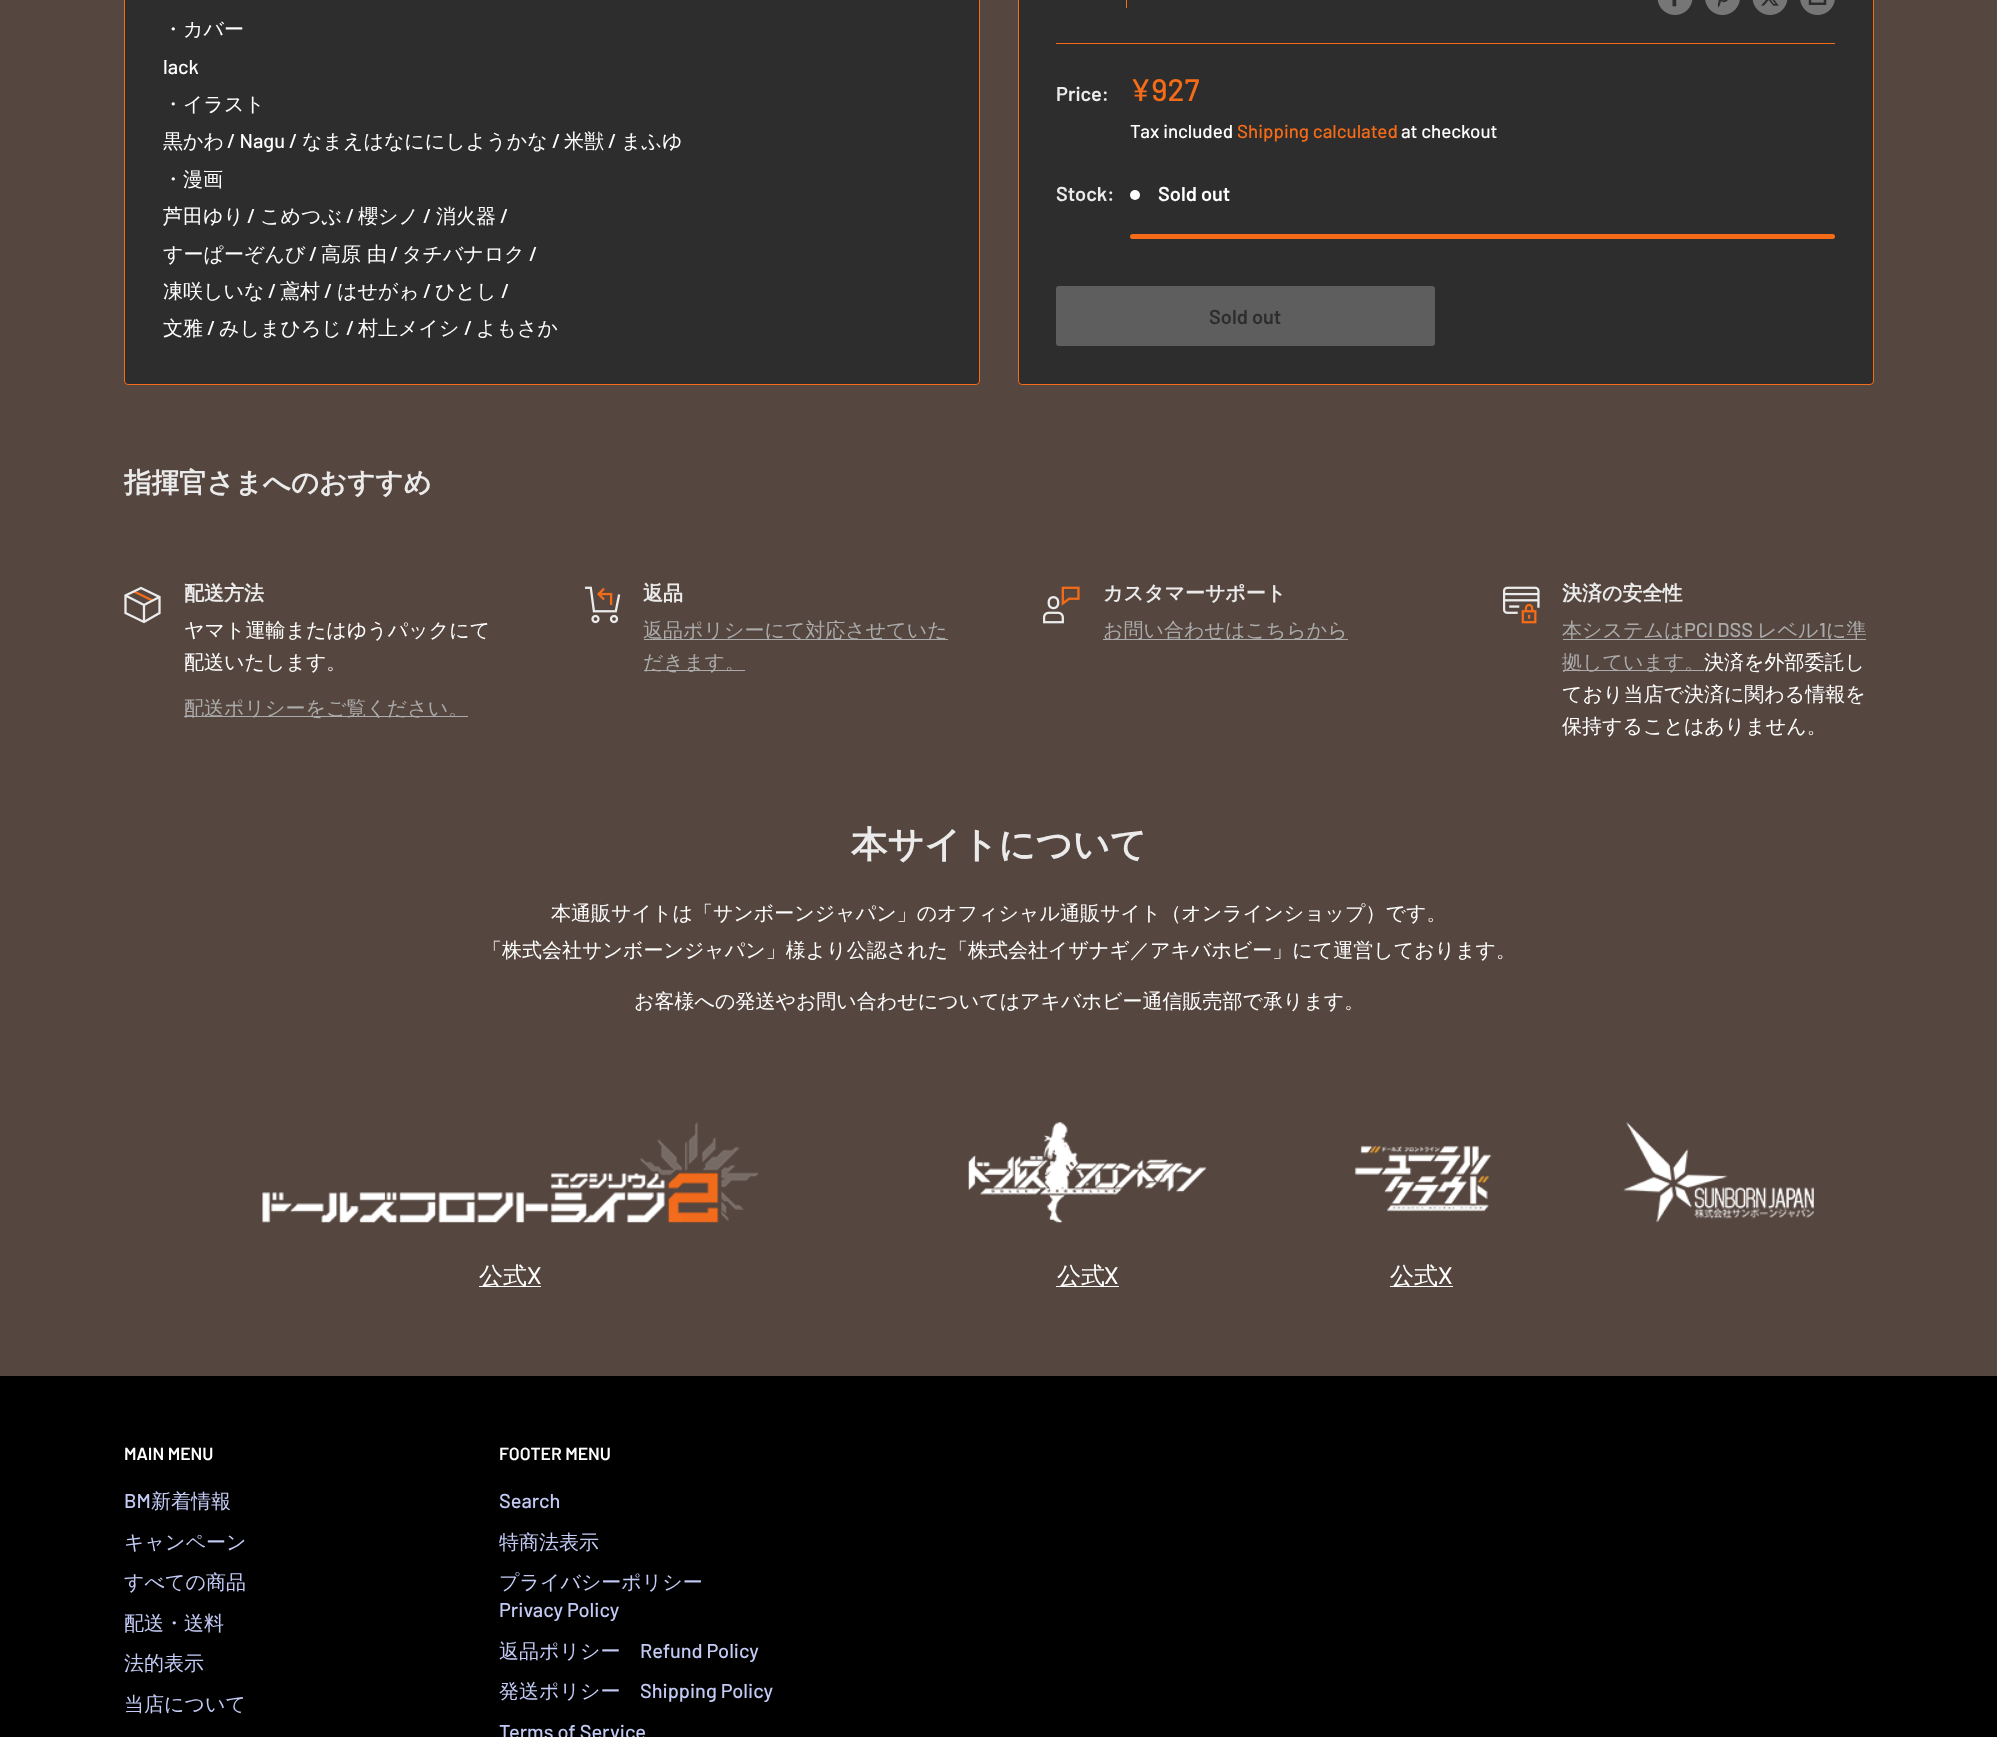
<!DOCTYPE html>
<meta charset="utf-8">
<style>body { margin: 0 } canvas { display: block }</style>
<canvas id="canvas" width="1997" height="1737"></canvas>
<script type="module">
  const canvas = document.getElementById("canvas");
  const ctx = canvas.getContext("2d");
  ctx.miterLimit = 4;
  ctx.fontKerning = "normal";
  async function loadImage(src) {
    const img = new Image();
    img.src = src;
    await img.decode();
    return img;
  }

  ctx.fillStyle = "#55463f";
  ctx.fillRect(0, 0, 1997, 1737);
  ctx.fillStyle = "#2d2d2d";
  ctx.beginPath();
  ctx.roundRect(124.5, -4.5, 855, 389, 3.5);
  ctx.fill();
  ctx.strokeStyle = "#f46c18";
  ctx.stroke();
  ctx.font = "500 20px WenQuanYi Zen Hei";
  ctx.fillStyle = "#ffffff";
  ctx.fillText("・カバー", 163, 36);
  ctx.font = "500 20px Barlow";
  ctx.fillText("lack", 163, 74);
  ctx.font = "500 20px WenQuanYi Zen Hei";
  ctx.fillText("・イラスト", 163, 111);
  ctx.fillText("黒かわ", 163, 148);
  ctx.font = "500 20px Barlow";
  ctx.fillText("/ Nagu /", 227, 148);
  ctx.font = "500 20px WenQuanYi Zen Hei";
  ctx.fillText("なまえはなににしようかな", 302, 148);
  ctx.font = "500 20px Barlow";
  ctx.fillText("/", 552, 148);
  ctx.font = "500 20px WenQuanYi Zen Hei";
  ctx.fillText("米獣", 564, 148);
  ctx.font = "500 20px Barlow";
  ctx.fillText("/", 608, 148);
  ctx.font = "500 20px WenQuanYi Zen Hei";
  ctx.fillText("まふゆ", 621, 148);
  ctx.fillText("・漫画", 163, 186);
  ctx.fillText("芦田ゆり", 163, 223);
  ctx.font = "500 20px Barlow";
  ctx.fillText("/", 247, 223);
  ctx.font = "500 20px WenQuanYi Zen Hei";
  ctx.fillText("こめつぶ", 260, 223);
  ctx.font = "500 20px Barlow";
  ctx.fillText("/", 346, 223);
  ctx.font = "500 20px WenQuanYi Zen Hei";
  ctx.fillText("櫻シノ", 358, 223);
  ctx.font = "500 20px Barlow";
  ctx.fillText("/", 423, 223);
  ctx.font = "500 20px WenQuanYi Zen Hei";
  ctx.fillText("消火器", 436, 223);
  ctx.font = "500 20px Barlow";
  ctx.fillText("/", 500, 223);
  ctx.font = "500 20px WenQuanYi Zen Hei";
  ctx.fillText("すーぱーぞんび", 163, 261);
  ctx.font = "500 20px Barlow";
  ctx.fillText("/", 309, 261);
  ctx.font = "500 20px WenQuanYi Zen Hei";
  ctx.fillText("高原 由", 321, 261);
  ctx.font = "500 20px Barlow";
  ctx.fillText("/", 390, 261);
  ctx.font = "500 20px WenQuanYi Zen Hei";
  ctx.fillText("タチバナロク", 402, 261);
  ctx.font = "500 20px Barlow";
  ctx.fillText("/", 529, 261);
  ctx.font = "500 20px WenQuanYi Zen Hei";
  ctx.fillText("凍咲しいな", 163, 298);
  ctx.font = "500 20px Barlow";
  ctx.fillText("/", 268, 298);
  ctx.font = "500 20px WenQuanYi Zen Hei";
  ctx.fillText("鳶村", 280, 298);
  ctx.font = "500 20px Barlow";
  ctx.fillText("/", 324, 298);
  ctx.font = "500 20px WenQuanYi Zen Hei";
  ctx.fillText("はせがゎ", 337, 298);
  ctx.font = "500 20px Barlow";
  ctx.fillText("/", 423, 298);
  ctx.font = "500 20px WenQuanYi Zen Hei";
  ctx.fillText("ひとし", 435, 298);
  ctx.font = "500 20px Barlow";
  ctx.fillText("/", 501, 298);
  ctx.font = "500 20px WenQuanYi Zen Hei";
  ctx.fillText("文雅", 163, 335);
  ctx.font = "500 20px Barlow";
  ctx.fillText("/", 207, 335);
  ctx.font = "500 20px WenQuanYi Zen Hei";
  ctx.fillText("みしまひろじ", 219, 335);
  ctx.font = "500 20px Barlow";
  ctx.fillText("/", 346, 335);
  ctx.font = "500 20px WenQuanYi Zen Hei";
  ctx.fillText("村上メイシ", 358, 335);
  ctx.font = "500 20px Barlow";
  ctx.fillText("/", 464, 335);
  ctx.font = "500 20px WenQuanYi Zen Hei";
  ctx.fillText("よもさか", 476, 335);
  ctx.fillStyle = "#2d2d2d";
  ctx.beginPath();
  ctx.roundRect(1018.5, -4.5, 855, 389, 3.5);
  ctx.fill();
  ctx.stroke();
  ctx.fillStyle = "#f46c18";
  ctx.fillRect(1126, 0, 1, 8);
  ctx.drawImage(await loadImage("img1.png"), 1657, 0, 36, 15);
  ctx.drawImage(await loadImage("img2.png"), 1705, 0, 35, 15);
  ctx.drawImage(await loadImage("img3.png"), 1752, 0, 36, 15);
  ctx.drawImage(await loadImage("img4.png"), 1800, 0, 35, 15);
  ctx.fillRect(1056, 43, 779, 1);
  ctx.font = "600 20px Barlow";
  ctx.fillStyle = "#ebebeb";
  ctx.fillText("Price:", 1056, 101);
  ctx.font = "500 31px Barlow";
  ctx.fillStyle = "#f46c18";
  ctx.fillText("¥927", 1130, 101);
  ctx.font = "500 18.75px Barlow";
  ctx.fillStyle = "#ffffff";
  ctx.fillText("Tax included", 1130, 138);
  ctx.fillStyle = "#f46c18";
  ctx.fillText("Shipping calculated", 1237, 138);
  ctx.fillStyle = "#ffffff";
  ctx.fillText("at checkout", 1401, 138);
  ctx.font = "600 20px Barlow";
  ctx.fillStyle = "#ebebeb";
  ctx.fillText("Stock:", 1056, 201);
  ctx.fillStyle = "#ffffff";
  ctx.beginPath();
  ctx.arc(1135, 195, 5, 0, Math.PI * 2);
  ctx.fill();
  ctx.fillText("Sold out", 1158, 201);
  ctx.fillStyle = "#f46c18";
  ctx.beginPath();
  ctx.roundRect(1130, 234, 705, 5, 2.5);
  ctx.fill();
  ctx.fillStyle = "#5e5e5e";
  ctx.beginPath();
  ctx.roundRect(1056.5, 286.5, 378, 59, 2);
  ctx.fill();
  ctx.strokeStyle = "#5e5e5e";
  ctx.stroke();
  ctx.fillStyle = "#2d2d2d";
  ctx.fillText("Sold out", 1209, 324);
  ctx.font = "bold 27.5px WenQuanYi Zen Hei";
  ctx.fillStyle = "#ebebeb";
  ctx.fillText("指揮官さまへのおすすめ", 124, 492);
  ctx.beginPath();
  ctx.moveTo(134, 591.5);
  ctx.lineTo(152.5, 600.5);
  ctx.strokeStyle = "#f46c18";
  ctx.lineWidth = 2.3;
  ctx.stroke();
  ctx.beginPath();
  ctx.moveTo(159.5, 597);
  ctx.lineTo(144, 605);
  ctx.lineTo(125.5, 595.5);
  ctx.moveTo(144, 605);
  ctx.lineTo(144, 622);
  ctx.strokeStyle = "#ebebeb";
  ctx.stroke();
  ctx.beginPath();
  ctx.moveTo(159.5, 597);
  ctx.lineTo(159.5, 613);
  ctx.lineTo(144, 622);
  ctx.lineTo(125.5, 613);
  ctx.lineTo(125.5, 595.5);
  ctx.lineTo(141, 588);
  ctx.closePath();
  ctx.lineCap = "square";
  ctx.stroke();
  ctx.font = "bold 20px WenQuanYi Zen Hei";
  ctx.fillText("配送方法", 184, 600);
  ctx.font = "500 20px WenQuanYi Zen Hei";
  ctx.fillStyle = "#ffffff";
  ctx.fillText("ヤマト運輸またはゆうパックにて", 184, 637);
  ctx.fillText("配送いたします。", 184, 669);
  ctx.fillStyle = "#ababab";
  ctx.fillRect(184, 716, 284, 1);
  ctx.fillText("配送ポリシーをご覧ください。", 184, 715);
  ctx.drawImage(await loadImage("img5.png"), 584, 586, 37, 38);
  ctx.font = "bold 20px WenQuanYi Zen Hei";
  ctx.fillStyle = "#ebebeb";
  ctx.fillText("返品", 643, 600);
  ctx.fillStyle = "#ababab";
  ctx.fillRect(644, 639, 304, 1);
  ctx.font = "500 20px WenQuanYi Zen Hei";
  ctx.fillText("返品ポリシーにて対応させていた", 643, 637);
  ctx.fillRect(644, 670, 101, 1);
  ctx.fillText("だきます。", 643, 669);
  ctx.drawImage(await loadImage("img6.png"), 1043, 586, 37, 38);
  ctx.font = "bold 20px WenQuanYi Zen Hei";
  ctx.fillStyle = "#ebebeb";
  ctx.fillText("カスタマーサポート", 1103, 600);
  ctx.fillStyle = "#ababab";
  ctx.fillRect(1103, 639, 245, 1);
  ctx.font = "500 20px WenQuanYi Zen Hei";
  ctx.fillText("お問い合わせはこちらから", 1103, 637);
  ctx.drawImage(await loadImage("img7.png"), 1503, 586, 37, 38);
  ctx.font = "bold 20px WenQuanYi Zen Hei";
  ctx.fillStyle = "#ebebeb";
  ctx.fillText("決済の安全性", 1562, 600);
  ctx.fillStyle = "#ababab";
  ctx.fillRect(1563, 639, 303, 1);
  ctx.font = "500 20px WenQuanYi Zen Hei";
  ctx.fillText("本システムは", 1562, 637);
  ctx.font = "500 20px Barlow";
  ctx.fillText("PCI DSS", 1684, 637);
  ctx.font = "500 20px WenQuanYi Zen Hei";
  ctx.fillText("レベル", 1757, 637);
  ctx.font = "500 20px Barlow";
  ctx.fillText("1", 1819, 637);
  ctx.font = "500 20px WenQuanYi Zen Hei";
  ctx.fillText("に準", 1826, 637);
  ctx.fillRect(1563, 670, 141, 1);
  ctx.fillText("拠しています。", 1562, 669);
  ctx.fillStyle = "#ffffff";
  ctx.fillText("決済を外部委託し", 1704, 669);
  ctx.fillText("ており当店で決済に関わる情報を", 1562, 701);
  ctx.fillText("保持することはありません。", 1562, 733);
  ctx.font = "bold 36.25px WenQuanYi Zen Hei";
  ctx.fillStyle = "#ebebeb";
  ctx.fillText("本サイトについて", 851, 857);
  ctx.font = "500 20px WenQuanYi Zen Hei";
  ctx.fillStyle = "#ffffff";
  ctx.fillText("本通販サイトは「サンボーンジャパン」のオフィシャル通販サイト（オンラインショップ）です。", 551, 920);
  ctx.fillText("「株式会社サンボーンジャパン」様より公認された「株式会社イザナギ／アキバホビー」にて運営しております。", 482, 957);
  ctx.fillText("お客様への発送やお問い合わせについてはアキバホビー通信販売部で承ります。", 634, 1008);
  ctx.drawImage(await loadImage("img8.png"), 262, 1122, 497, 101);
  ctx.drawImage(await loadImage("img9.png"), 968, 1122, 239, 101);
  ctx.drawImage(await loadImage("img10.png"), 1354, 1145, 138, 67);
  ctx.drawImage(await loadImage("img11.png"), 1623, 1122, 191, 101);
  ctx.fillRect(479, 1286, 62, 1);
  ctx.font = "500 24px WenQuanYi Zen Hei";
  ctx.fillText("公式", 479, 1284);
  ctx.font = "500 24px Barlow";
  ctx.fillText("X", 527, 1284);
  ctx.fillRect(1056, 1286, 63, 1);
  ctx.font = "500 24px WenQuanYi Zen Hei";
  ctx.fillText("公式", 1057, 1284);
  ctx.font = "500 24px Barlow";
  ctx.fillText("X", 1104, 1284);
  ctx.fillRect(1390, 1286, 63, 1);
  ctx.font = "500 24px WenQuanYi Zen Hei";
  ctx.fillText("公式", 1390, 1284);
  ctx.font = "500 24px Barlow";
  ctx.fillText("X", 1438, 1284);
  ctx.fillStyle = "#000000";
  ctx.fillRect(0, 1376, 1997, 361);
  ctx.font = "600 17.5px Barlow";
  ctx.fillStyle = "#ffffff";
  ctx.fillText("MAIN MENU", 124, 1460);
  ctx.font = "500 20px Barlow";
  ctx.fillStyle = "#c3cbf5";
  ctx.fillText("BM", 124, 1508);
  ctx.font = "500 20px WenQuanYi Zen Hei";
  ctx.fillText("新着情報", 151, 1508);
  ctx.fillText("キャンペーン", 124, 1549);
  ctx.fillText("すべての商品", 124, 1589);
  ctx.fillText("配送・送料", 124, 1630);
  ctx.fillText("法的表示", 124, 1670);
  ctx.fillText("当店について", 124, 1711);
  ctx.font = "600 17.5px Barlow";
  ctx.fillStyle = "#ffffff";
  ctx.fillText("FOOTER MENU", 499, 1460);
  ctx.font = "500 20px Barlow";
  ctx.fillStyle = "#c3cbf5";
  ctx.fillText("Search", 499, 1508);
  ctx.font = "500 20px WenQuanYi Zen Hei";
  ctx.fillText("特商法表示", 499, 1549);
  ctx.fillText("プライバシーポリシー", 499, 1589);
  ctx.font = "500 20px Barlow";
  ctx.fillText("Privacy Policy", 499, 1617);
  ctx.font = "500 20px WenQuanYi Zen Hei";
  ctx.fillText("返品ポリシー", 499, 1658);
  ctx.font = "500 20px Barlow";
  ctx.fillText("Refund Policy", 640, 1658);
  ctx.font = "500 20px WenQuanYi Zen Hei";
  ctx.fillText("発送ポリシー", 499, 1698);
  ctx.font = "500 20px Barlow";
  ctx.fillText("Shipping Policy", 640, 1698);
  ctx.fillText("Terms of Service", 499, 1739);
</script>
